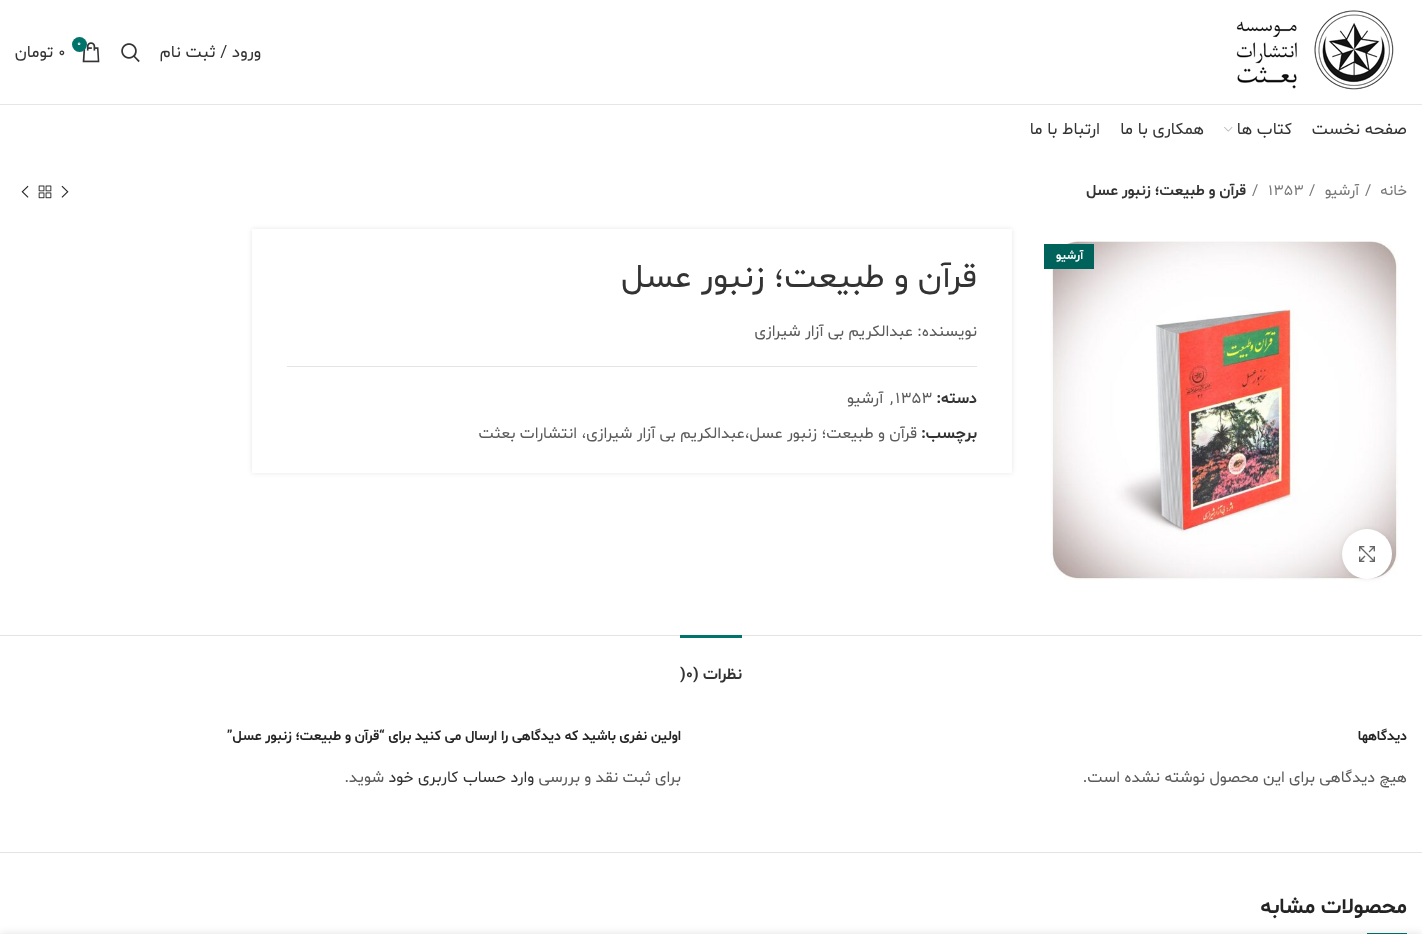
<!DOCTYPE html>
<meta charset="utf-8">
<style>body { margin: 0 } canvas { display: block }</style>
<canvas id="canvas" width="1422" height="934"></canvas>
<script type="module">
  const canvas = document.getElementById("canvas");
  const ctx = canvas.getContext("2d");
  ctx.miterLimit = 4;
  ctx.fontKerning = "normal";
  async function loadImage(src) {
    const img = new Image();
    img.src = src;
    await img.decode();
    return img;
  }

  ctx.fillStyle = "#ffffff";
  ctx.fillRect(0, 0, 1422, 934);
  ctx.fillStyle = "#e6e6e6";
  ctx.fillRect(0, 104, 1422, 1);
  ctx.drawImage(await loadImage("img1.png"), 1236, 10, 158, 80);
  ctx.direction = "rtl";
  ctx.font = "17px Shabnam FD";
  ctx.fillStyle = "#333333";
  ctx.fillText("ورود / ثبت نام", 261, 57);
  ctx.drawImage(await loadImage("img2.png"), 121, 43, 19, 20);
  ctx.drawImage(await loadImage("img3.png"), 82, 42, 18, 21);
  ctx.fillStyle = "#00746b";
  ctx.beginPath();
  ctx.arc(79.5, 44.5, 7.5, 0, Math.PI * 2);
  ctx.fill();
  ctx.direction = "ltr";
  ctx.font = "9px Shabnam FD";
  ctx.fillStyle = "#ffffff";
  ctx.fillText("0", 77, 46);
  ctx.font = "17px Shabnam FD";
  ctx.fillStyle = "#333333";
  ctx.fillText("۰", 58, 57);
  ctx.direction = "rtl";
  ctx.fillText("تومان", 53, 57);
  ctx.fillText("صفحه نخست", 1407, 134);
  ctx.fillText("کتاب ها", 1292, 134);
  ctx.drawImage(await loadImage("img4.png"), 1224, 127, 9, 5);
  ctx.fillText("همکاری با ما", 1204, 134);
  ctx.fillText("ارتباط با ما", 1100, 134);
  ctx.font = "15.25px Shabnam FD";
  ctx.fillStyle = "#777777";
  ctx.fillText("خانه", 1407, 195);
  ctx.direction = "ltr";
  ctx.fillText("/", 1365, 195);
  ctx.direction = "rtl";
  ctx.fillText("آرشیو", 1359, 195);
  ctx.direction = "ltr";
  ctx.fillText("/", 1309, 195);
  ctx.fillText("1353", 1268, 195);
  ctx.fillText("/", 1252, 195);
  ctx.direction = "rtl";
  ctx.font = "bold 15.25px Shabnam FD";
  ctx.fillStyle = "#333333";
  ctx.fillText("قرآن و طبیعت؛ زنبور عسل", 1246, 195);
  ctx.drawImage(await loadImage("img5.png"), 61, 185, 8, 13);
  ctx.drawImage(await loadImage("img6.png"), 38, 185, 14, 14);
  ctx.drawImage(await loadImage("img7.png"), 21, 185, 8, 13);
  ctx.drawImage(await loadImage("img8.png"), 1050, 241, 349, 339);
  ctx.fillStyle = "#00635b";
  ctx.fillRect(1044, 244, 50, 25);
  ctx.font = "bold 12px Shabnam FD";
  ctx.fillStyle = "#ffffff";
  ctx.fillText("آرشیو", 1083, 259);
  ctx.fillStyle = "rgba(0, 0, 0, 0.08)";
  ctx.filter = "blur(2.5px)";
  ctx.beginPath();
  ctx.roundRect(1342, 529, 50, 50, 25);
  ctx.fill();
  ctx.filter = "none";
  ctx.fillStyle = "#ffffff";
  ctx.beginPath();
  ctx.arc(1367, 554, 25, 0, Math.PI * 2);
  ctx.fill();
  ctx.drawImage(await loadImage("img9.png"), 1359, 546, 16, 16);
  ctx.save();
  ctx.beginPath();
  ctx.moveTo(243, 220);
  ctx.lineTo(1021, 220);
  ctx.lineTo(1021, 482);
  ctx.lineTo(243, 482);
  ctx.closePath();
  ctx.moveTo(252, 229);
  ctx.lineTo(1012, 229);
  ctx.lineTo(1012, 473);
  ctx.lineTo(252, 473);
  ctx.closePath();
  ctx.clip("evenodd");
  ctx.fillStyle = "rgba(0, 0, 0, 0.1)";
  ctx.filter = "blur(2.5px)";
  ctx.beginPath();
  ctx.rect(252, 229, 760, 244);
  ctx.fill();
  ctx.filter = "none";
  ctx.restore();
  ctx.font = "34px Shabnam FD";
  ctx.fillStyle = "#333333";
  ctx.fillText("قرآن و طبیعت؛ زنبور عسل", 977, 287);
  ctx.font = "16px Shabnam FD";
  ctx.fillStyle = "#5b5b5b";
  ctx.fillText("نویسنده: عبدالکریم بی آزار شیرازی", 977, 336);
  ctx.fillStyle = "#e4e4e4";
  ctx.fillRect(287, 366, 690, 1);
  ctx.font = "bold 16px Shabnam FD";
  ctx.fillStyle = "#333333";
  ctx.fillText("دسته:", 977, 403);
  ctx.direction = "ltr";
  ctx.font = "16px Shabnam FD";
  ctx.fillStyle = "#5b5b5b";
  ctx.fillText("1353", 895, 403);
  ctx.direction = "rtl";
  ctx.fillText("آرشیو", 883, 403);
  ctx.direction = "ltr";
  ctx.fillText(",", 890, 403);
  ctx.direction = "rtl";
  ctx.font = "bold 16px Shabnam FD";
  ctx.fillStyle = "#333333";
  ctx.fillText("برچسب:", 977, 438);
  ctx.font = "16px Shabnam FD";
  ctx.fillStyle = "#5b5b5b";
  ctx.fillText("قرآن و طبیعت؛ زنبور عسل،عبدالکریم بی آزار شیرازی، انتشارات بعثت", 917, 438);
  ctx.fillStyle = "#e4e4e4";
  ctx.fillRect(0, 635, 1422, 1);
  ctx.fillRect(0, 852, 1422, 1);
  ctx.fillStyle = "#00746b";
  ctx.fillRect(680, 635, 62, 3);
  ctx.font = "bold 16px Shabnam FD";
  ctx.fillStyle = "#333333";
  ctx.fillText("نظرات (", 742, 679);
  ctx.direction = "ltr";
  ctx.fillText(")0", 680, 679);
  ctx.direction = "rtl";
  ctx.font = "bold 14px Shabnam FD";
  ctx.fillStyle = "#242424";
  ctx.fillText("دیدگاهها", 1407, 740);
  ctx.font = "16px Shabnam FD";
  ctx.fillStyle = "#5b5b5b";
  ctx.fillText("هیچ دیدگاهی برای این محصول نوشته نشده است.", 1407, 782);
  ctx.font = "bold 14px Shabnam FD";
  ctx.fillStyle = "#242424";
  ctx.fillText("اولین نفری باشید که دیدگاهی را ارسال می کنید برای “قرآن و طبیعت؛ زنبور عسل”", 681, 740);
  ctx.font = "16px Shabnam FD";
  ctx.fillStyle = "#5b5b5b";
  ctx.fillText("برای ثبت نقد و بررسی", 681, 782);
  ctx.fillStyle = "#333333";
  ctx.fillText("وارد حساب کاربری خود", 534, 782);
  ctx.fillStyle = "#5b5b5b";
  ctx.fillText("شوید.", 384, 782);
  ctx.font = "bold 22px Shabnam FD";
  ctx.fillStyle = "#242424";
  ctx.fillText("محصولات مشابه", 1407, 913);
  ctx.fillStyle = "#00746b";
  ctx.fillRect(1367, 933, 40, 1);
  ctx.fillStyle = "rgba(0, 0, 0, 0.12)";
  ctx.filter = "blur(4.5px)";
  ctx.beginPath();
  ctx.rect(0, 934, 1422, 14);
  ctx.fill();
  ctx.filter = "none";
</script>
